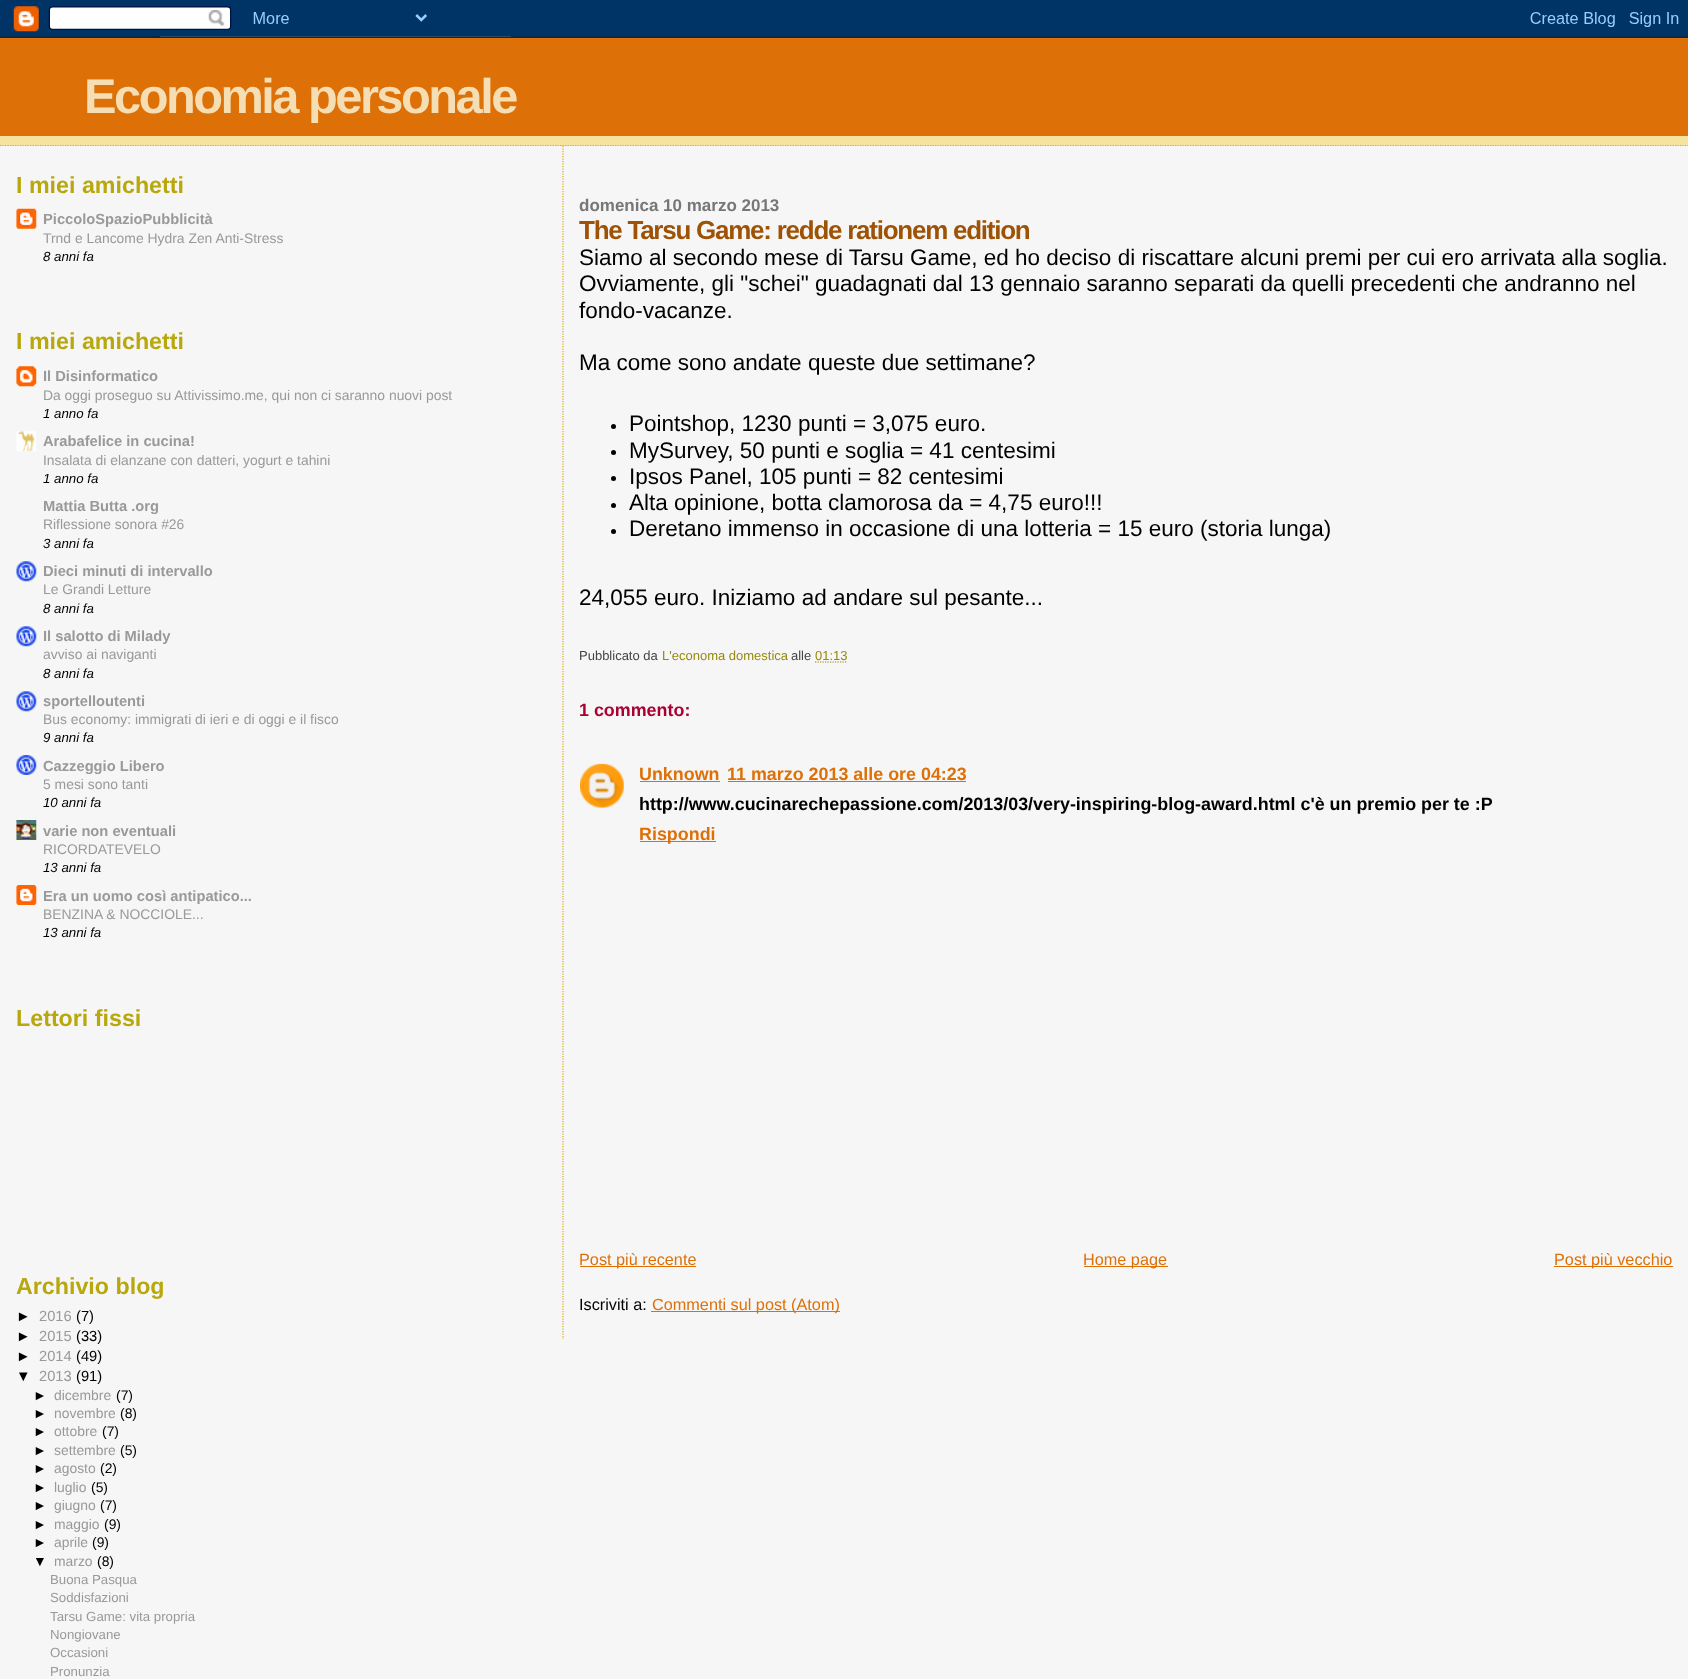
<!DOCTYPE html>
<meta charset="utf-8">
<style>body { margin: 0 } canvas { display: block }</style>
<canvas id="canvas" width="1688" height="1679"></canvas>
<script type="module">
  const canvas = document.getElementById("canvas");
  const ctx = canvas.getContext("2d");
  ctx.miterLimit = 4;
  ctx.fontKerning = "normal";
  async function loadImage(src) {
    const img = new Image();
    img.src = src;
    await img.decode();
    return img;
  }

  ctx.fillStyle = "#f6f6f6";
  ctx.fillRect(0, 0, 1688, 1679);
  ctx.drawImage(await loadImage("img1.png"), 0, 0, 1688, 38);
  ctx.fillStyle = "#f5e39e";
  ctx.fillRect(0, 136, 1688, 10);
  ctx.beginPath();
  ctx.moveTo(0, 145.5);
  ctx.lineTo(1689, 145.5);
  ctx.strokeStyle = "#e0ad12";
  ctx.lineWidth = 1.2;
  ctx.setLineDash([1.25, 1.25]);
  ctx.stroke();
  ctx.fillStyle = "#de7008";
  ctx.fillRect(0, 38, 1688, 98);
  ctx.letterSpacing = "-2.5px";
  ctx.font = "bold 48.75px Liberation Sans";
  ctx.fillStyle = "#f5deb3";
  ctx.fillText("Economia personale", 84, 113);
  ctx.letterSpacing = "0px";
  ctx.font = "bold 23.25px Liberation Sans";
  ctx.fillStyle = "#b8a80d";
  ctx.fillText("I miei amichetti", 16, 193);
  ctx.drawImage(await loadImage("img2.png"), 16, 208, 21, 21);
  ctx.font = "bold 14.7px Liberation Sans";
  ctx.fillStyle = "#999999";
  ctx.fillText("PiccoloSpazioPubblicità", 43, 224);
  ctx.font = "13.9px Liberation Sans";
  ctx.fillText("Trnd e Lancome Hydra Zen Anti-Stress", 43, 243);
  ctx.font = "italic 13.25px Liberation Sans";
  ctx.fillStyle = "#000000";
  ctx.fillText("8 anni fa", 43, 261);
  ctx.font = "bold 23.25px Liberation Sans";
  ctx.fillStyle = "#b8a80d";
  ctx.fillText("I miei amichetti", 16, 349);
  ctx.drawImage(await loadImage("img3.png"), 16, 366, 21, 21);
  ctx.font = "bold 14.7px Liberation Sans";
  ctx.fillStyle = "#999999";
  ctx.fillText("Il Disinformatico", 43, 381);
  ctx.font = "13.9px Liberation Sans";
  ctx.fillText("Da oggi proseguo su Attivissimo.me, qui non ci saranno nuovi post", 43, 400);
  ctx.font = "italic 13.25px Liberation Sans";
  ctx.fillStyle = "#000000";
  ctx.fillText("1 anno fa", 43, 418);
  ctx.drawImage(await loadImage("img4.png"), 16, 431, 20, 21);
  ctx.font = "bold 14.7px Liberation Sans";
  ctx.fillStyle = "#999999";
  ctx.fillText("Arabafelice in cucina!", 43, 446);
  ctx.font = "13.9px Liberation Sans";
  ctx.fillText("Insalata di elanzane con datteri, yogurt e tahini", 43, 465);
  ctx.font = "italic 13.25px Liberation Sans";
  ctx.fillStyle = "#000000";
  ctx.fillText("1 anno fa", 43, 483);
  ctx.font = "bold 14.7px Liberation Sans";
  ctx.fillStyle = "#999999";
  ctx.fillText("Mattia Butta .org", 43, 511);
  ctx.font = "13.9px Liberation Sans";
  ctx.fillText("Riflessione sonora #26", 43, 529);
  ctx.font = "italic 13.25px Liberation Sans";
  ctx.fillStyle = "#000000";
  ctx.fillText("3 anni fa", 43, 548);
  ctx.drawImage(await loadImage("img5.png"), 16, 561, 21, 21);
  ctx.font = "bold 14.7px Liberation Sans";
  ctx.fillStyle = "#999999";
  ctx.fillText("Dieci minuti di intervallo", 43, 576);
  ctx.font = "13.9px Liberation Sans";
  ctx.fillText("Le Grandi Letture", 43, 594);
  ctx.font = "italic 13.25px Liberation Sans";
  ctx.fillStyle = "#000000";
  ctx.fillText("8 anni fa", 43, 613);
  ctx.drawImage(await loadImage("img5.png"), 16, 626, 21, 21);
  ctx.font = "bold 14.7px Liberation Sans";
  ctx.fillStyle = "#999999";
  ctx.fillText("Il salotto di Milady", 43, 641);
  ctx.font = "13.9px Liberation Sans";
  ctx.fillText("avviso ai naviganti", 43, 659);
  ctx.font = "italic 13.25px Liberation Sans";
  ctx.fillStyle = "#000000";
  ctx.fillText("8 anni fa", 43, 678);
  ctx.drawImage(await loadImage("img5.png"), 16, 691, 21, 21);
  ctx.font = "bold 14.7px Liberation Sans";
  ctx.fillStyle = "#999999";
  ctx.fillText("sportelloutenti", 43, 706);
  ctx.font = "13.9px Liberation Sans";
  ctx.fillText("Bus economy: immigrati di ieri e di oggi e il fisco", 43, 724);
  ctx.font = "italic 13.25px Liberation Sans";
  ctx.fillStyle = "#000000";
  ctx.fillText("9 anni fa", 43, 742);
  ctx.drawImage(await loadImage("img6.png"), 16, 755, 21, 20);
  ctx.font = "bold 14.7px Liberation Sans";
  ctx.fillStyle = "#999999";
  ctx.fillText("Cazzeggio Libero", 43, 771);
  ctx.font = "13.9px Liberation Sans";
  ctx.fillText("5 mesi sono tanti", 43, 789);
  ctx.font = "italic 13.25px Liberation Sans";
  ctx.fillStyle = "#000000";
  ctx.fillText("10 anni fa", 43, 807);
  ctx.drawImage(await loadImage("img7.png"), 16, 820, 21, 20);
  ctx.font = "bold 14.7px Liberation Sans";
  ctx.fillStyle = "#999999";
  ctx.fillText("varie non eventuali", 43, 836);
  ctx.font = "13.9px Liberation Sans";
  ctx.fillText("RICORDATEVELO", 43, 854);
  ctx.font = "italic 13.25px Liberation Sans";
  ctx.fillStyle = "#000000";
  ctx.fillText("13 anni fa", 43, 872);
  ctx.drawImage(await loadImage("img8.png"), 16, 885, 21, 20);
  ctx.font = "bold 14.7px Liberation Sans";
  ctx.fillStyle = "#999999";
  ctx.fillText("Era un uomo così antipatico...", 43, 901);
  ctx.font = "13.9px Liberation Sans";
  ctx.fillText("BENZINA & NOCCIOLE...", 43, 919);
  ctx.font = "italic 13.25px Liberation Sans";
  ctx.fillStyle = "#000000";
  ctx.fillText("13 anni fa", 43, 937);
  ctx.font = "bold 23.25px Liberation Sans";
  ctx.fillStyle = "#b8a80d";
  ctx.fillText("Lettori fissi", 16, 1026);
  ctx.fillText("Archivio blog", 16, 1294);
  ctx.font = "14.7px Liberation Sans";
  ctx.fillStyle = "#000000";
  ctx.fillText("►", 16, 1321);
  ctx.fillStyle = "#999999";
  ctx.fillText("2016", 39, 1321);
  ctx.fillStyle = "#000000";
  ctx.fillText("(7)", 76, 1321);
  ctx.fillText("►", 16, 1341);
  ctx.fillStyle = "#999999";
  ctx.fillText("2015", 39, 1341);
  ctx.fillStyle = "#000000";
  ctx.fillText("(33)", 76, 1341);
  ctx.fillText("►", 16, 1361);
  ctx.fillStyle = "#999999";
  ctx.fillText("2014", 39, 1361);
  ctx.fillStyle = "#000000";
  ctx.fillText("(49)", 76, 1361);
  ctx.fillText("▼", 16, 1381);
  ctx.fillStyle = "#999999";
  ctx.fillText("2013", 39, 1381);
  ctx.fillStyle = "#000000";
  ctx.fillText("(91)", 76, 1381);
  ctx.font = "13.9px Liberation Sans";
  ctx.fillText("►", 33, 1400);
  ctx.fillStyle = "#999999";
  ctx.fillText("dicembre", 54, 1400);
  ctx.fillStyle = "#000000";
  ctx.fillText("(7)", 116, 1400);
  ctx.fillText("►", 33, 1418);
  ctx.fillStyle = "#999999";
  ctx.fillText("novembre", 54, 1418);
  ctx.fillStyle = "#000000";
  ctx.fillText("(8)", 120, 1418);
  ctx.fillText("►", 33, 1436);
  ctx.fillStyle = "#999999";
  ctx.fillText("ottobre", 54, 1436);
  ctx.fillStyle = "#000000";
  ctx.fillText("(7)", 102, 1436);
  ctx.fillText("►", 33, 1455);
  ctx.fillStyle = "#999999";
  ctx.fillText("settembre", 54, 1455);
  ctx.fillStyle = "#000000";
  ctx.fillText("(5)", 120, 1455);
  ctx.fillText("►", 33, 1473);
  ctx.fillStyle = "#999999";
  ctx.fillText("agosto", 54, 1473);
  ctx.fillStyle = "#000000";
  ctx.fillText("(2)", 100, 1473);
  ctx.fillText("►", 33, 1492);
  ctx.fillStyle = "#999999";
  ctx.fillText("luglio", 54, 1492);
  ctx.fillStyle = "#000000";
  ctx.fillText("(5)", 91, 1492);
  ctx.fillText("►", 33, 1510);
  ctx.fillStyle = "#999999";
  ctx.fillText("giugno", 54, 1510);
  ctx.fillStyle = "#000000";
  ctx.fillText("(7)", 100, 1510);
  ctx.fillText("►", 33, 1529);
  ctx.fillStyle = "#999999";
  ctx.fillText("maggio", 54, 1529);
  ctx.fillStyle = "#000000";
  ctx.fillText("(9)", 104, 1529);
  ctx.fillText("►", 33, 1547);
  ctx.fillStyle = "#999999";
  ctx.fillText("aprile", 54, 1547);
  ctx.fillStyle = "#000000";
  ctx.fillText("(9)", 92, 1547);
  ctx.fillText("▼", 33, 1566);
  ctx.fillStyle = "#999999";
  ctx.fillText("marzo", 54, 1566);
  ctx.fillStyle = "#000000";
  ctx.fillText("(8)", 97, 1566);
  ctx.font = "13.25px Liberation Sans";
  ctx.fillStyle = "#999999";
  ctx.fillText("Buona Pasqua", 50, 1584);
  ctx.fillText("Soddisfazioni", 50, 1602);
  ctx.fillText("Tarsu Game: vita propria", 50, 1621);
  ctx.fillText("Nongiovane", 50, 1639);
  ctx.fillText("Occasioni", 50, 1657);
  ctx.fillText("Pronunzia", 50, 1676);
  ctx.beginPath();
  ctx.moveTo(563, 146);
  ctx.lineTo(563, 1339);
  ctx.stroke();
  ctx.font = "bold 17px Liberation Sans";
  ctx.fillStyle = "#777777";
  ctx.fillText("domenica 10 marzo 2013", 579, 211);
  ctx.letterSpacing = "-1.25px";
  ctx.font = "bold 26px Liberation Sans";
  ctx.fillStyle = "#9e5205";
  ctx.fillText("The Tarsu Game: redde rationem edition", 579, 239);
  ctx.letterSpacing = "0px";
  ctx.font = "22.5px Liberation Sans";
  ctx.fillStyle = "#000000";
  ctx.fillText("Siamo al secondo mese di Tarsu Game, ed ho deciso di riscattare alcuni premi per cui ero arrivata alla soglia.", 579, 265);
  ctx.fillText("Ovviamente, gli \"schei\" guadagnati dal 13 gennaio saranno separati da quelli precedenti che andranno nel", 579, 291);
  ctx.fillText("fondo-vacanze.", 579, 318);
  ctx.fillText("Ma come sono andate queste due settimane?", 579, 370);
  ctx.beginPath();
  ctx.arc(613.5, 426.5, 2.5, 0, Math.PI * 2);
  ctx.fill();
  ctx.fillText("Pointshop, 1230 punti = 3,075 euro.", 629, 431);
  ctx.beginPath();
  ctx.arc(613.5, 452.5, 2.5, 0, Math.PI * 2);
  ctx.fill();
  ctx.fillText("MySurvey, 50 punti e soglia = 41 centesimi", 629, 458);
  ctx.beginPath();
  ctx.arc(613.5, 478.5, 2.5, 0, Math.PI * 2);
  ctx.fill();
  ctx.fillText("Ipsos Panel, 105 punti = 82 centesimi", 629, 484);
  ctx.beginPath();
  ctx.arc(613.5, 505.5, 2.5, 0, Math.PI * 2);
  ctx.fill();
  ctx.fillText("Alta opinione, botta clamorosa da = 4,75 euro!!!", 629, 510);
  ctx.beginPath();
  ctx.arc(613.5, 531.5, 2.5, 0, Math.PI * 2);
  ctx.fill();
  ctx.fillText("Deretano immenso in occasione di una lotteria = 15 euro (storia lunga)", 629, 536);
  ctx.fillText("24,055 euro. Iniziamo ad andare sul pesante...", 579, 605);
  ctx.font = "13px Liberation Sans";
  ctx.fillStyle = "#444444";
  ctx.fillText("Pubblicato da", 579, 660);
  ctx.fillStyle = "#968a0a";
  ctx.fillText("L'economa domestica", 662, 660);
  ctx.fillStyle = "#444444";
  ctx.fillText("alle", 791, 660);
  ctx.fillStyle = "#968a0a";
  ctx.fillText("01:13", 815, 660);
  ctx.beginPath();
  ctx.moveTo(815, 662);
  ctx.lineTo(847.5, 662);
  ctx.strokeStyle = "#968a0a";
  ctx.stroke();
  ctx.font = "bold 17.9px Liberation Sans";
  ctx.fillStyle = "#aa0033";
  ctx.fillText("1 commento:", 579, 716);
  ctx.drawImage(await loadImage("img9.png"), 580, 763, 44, 45);
  ctx.fillStyle = "#de7008";
  ctx.fillText("Unknown", 639, 780);
  ctx.fillRect(640, 781, 80, 1);
  ctx.fillText("11 marzo 2013 alle ore 04:23", 727, 780);
  ctx.fillRect(728, 781, 238, 1);
  ctx.fillStyle = "#000000";
  ctx.fillText("http://www.cucinarechepassione.com/2013/03/very-inspiring-blog-award.html c'è un premio per te :P", 639, 810);
  ctx.fillStyle = "#de7008";
  ctx.fillRect(640, 841, 76, 1);
  ctx.fillText("Rispondi", 639, 840);
  ctx.fillRect(580, 1266, 116, 1);
  ctx.font = "16.25px Liberation Sans";
  ctx.fillText("Post più recente", 579, 1265);
  ctx.fillRect(1084, 1266, 84, 1);
  ctx.fillText("Home page", 1083, 1265);
  ctx.fillRect(1554, 1266, 119, 1);
  ctx.fillText("Post più vecchio", 1554, 1265);
  ctx.fillStyle = "#000000";
  ctx.fillText("Iscriviti a:", 579, 1310);
  ctx.fillStyle = "#de7008";
  ctx.fillRect(651, 1311, 189, 1);
  ctx.fillText("Commenti sul post (Atom)", 652, 1310);
</script>
